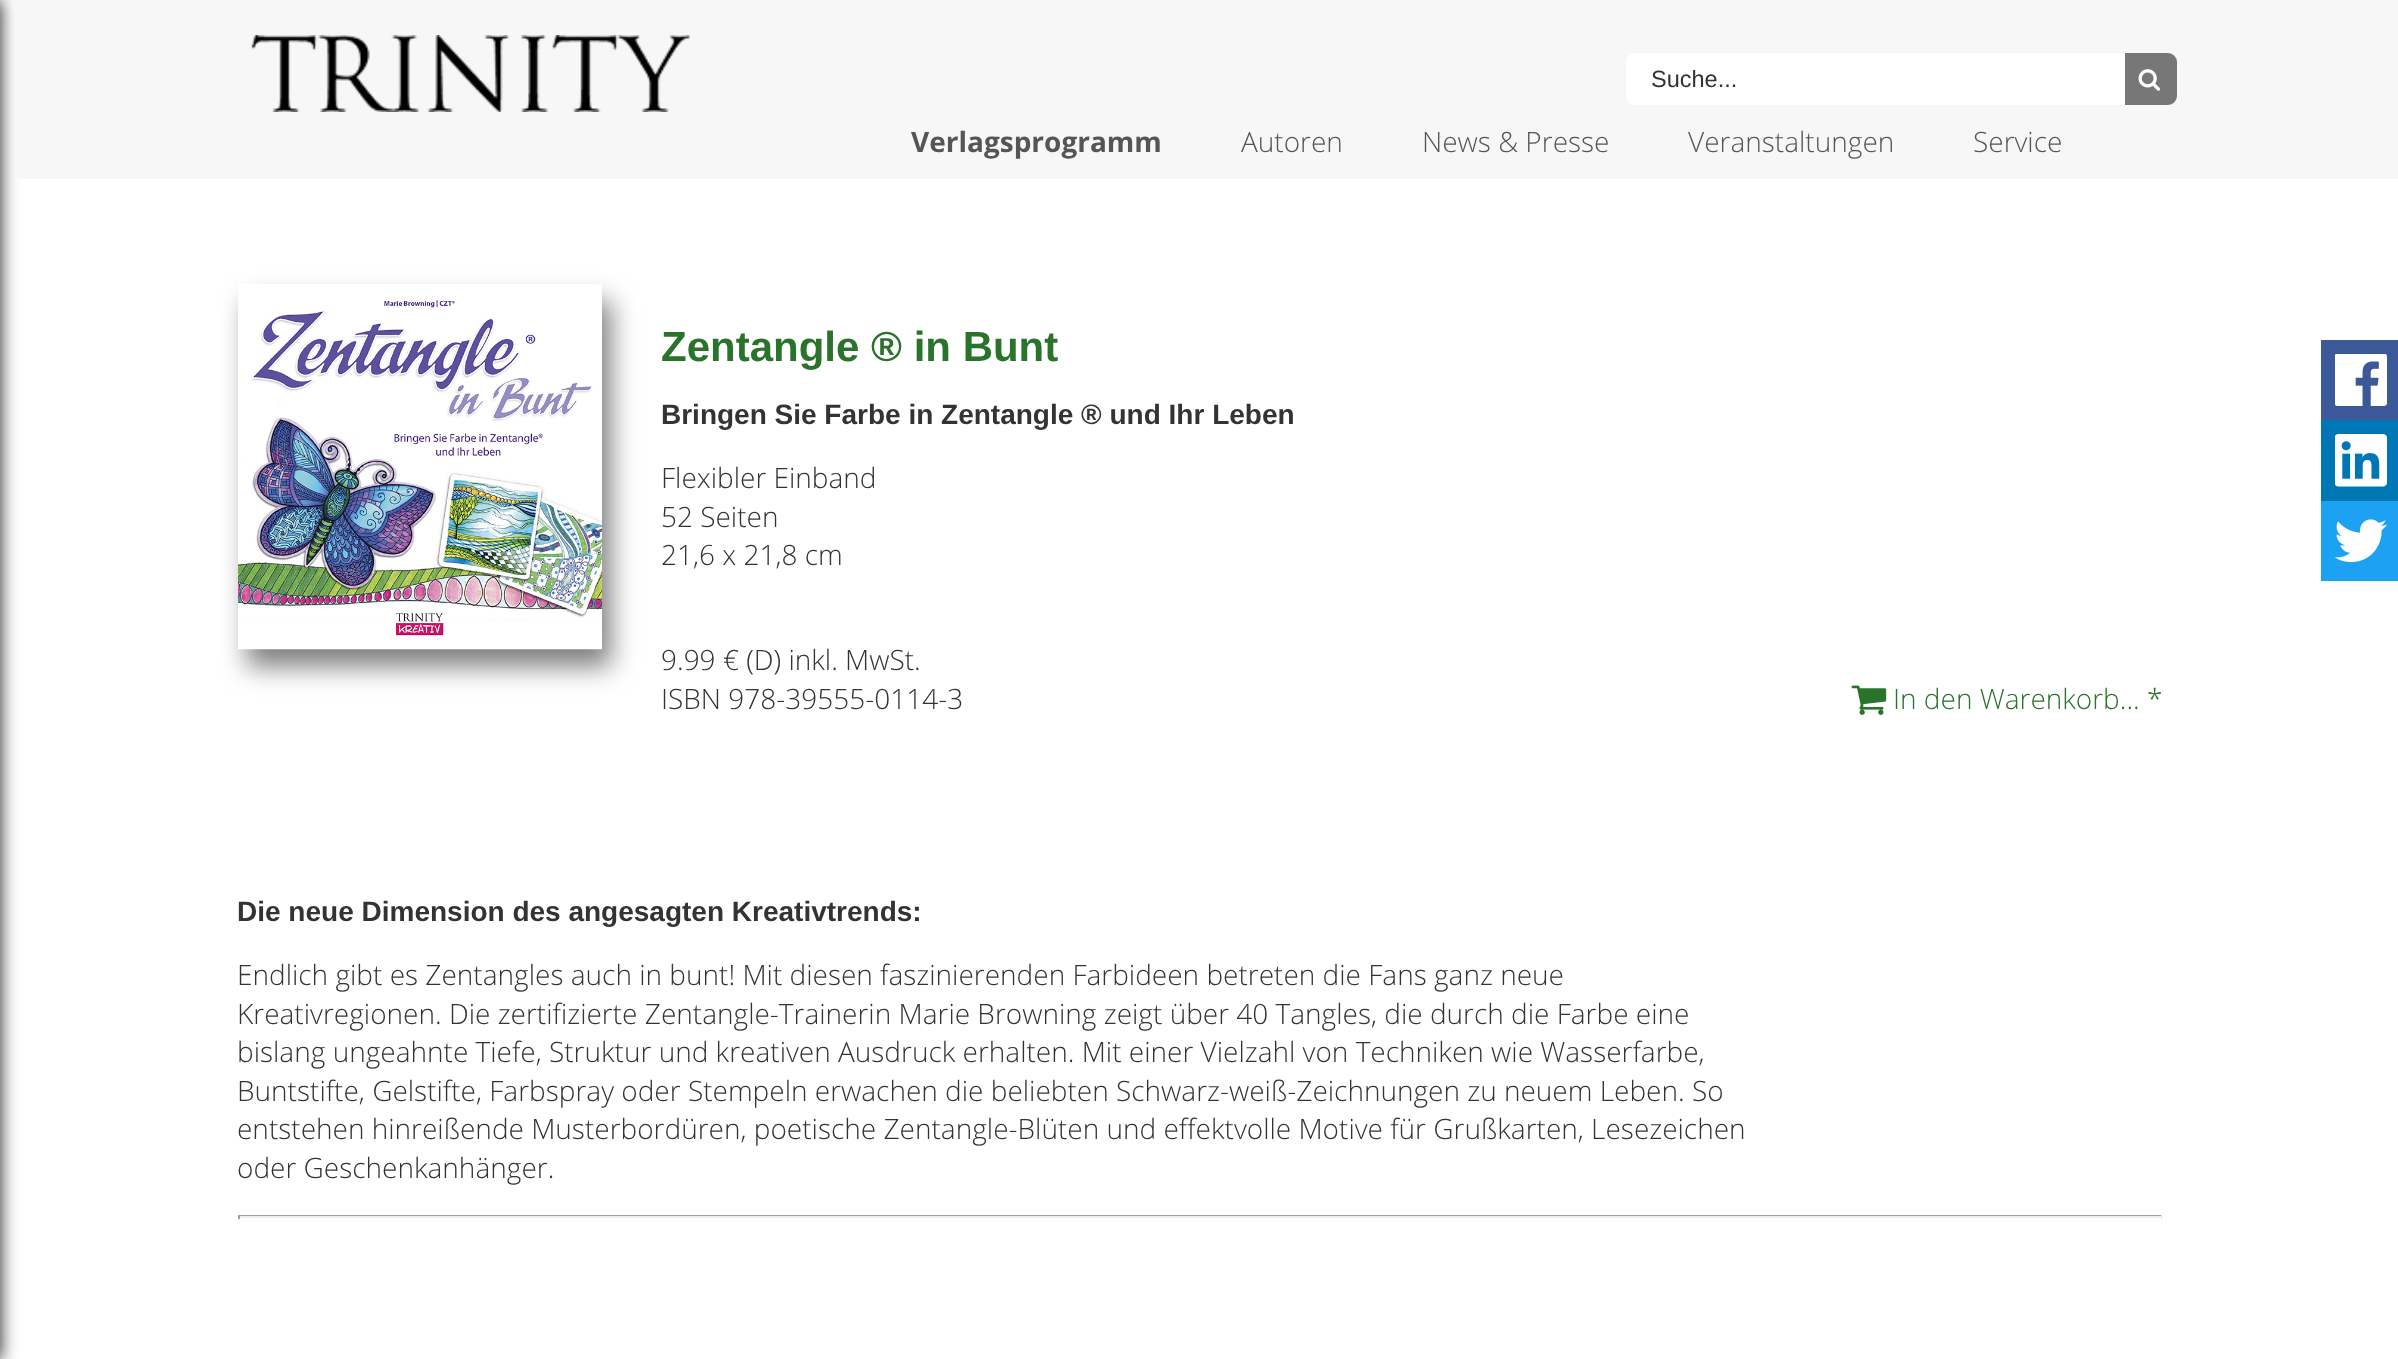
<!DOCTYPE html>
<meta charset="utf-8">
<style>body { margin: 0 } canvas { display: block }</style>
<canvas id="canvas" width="2398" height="1359"></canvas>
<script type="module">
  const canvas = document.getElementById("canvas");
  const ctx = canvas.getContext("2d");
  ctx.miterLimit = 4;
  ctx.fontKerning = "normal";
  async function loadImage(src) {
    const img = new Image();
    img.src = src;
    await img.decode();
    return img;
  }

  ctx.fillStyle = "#ffffff";
  ctx.fillRect(0, 0, 2398, 1359);
  ctx.fillStyle = "rgba(0, 0, 0, 0.9)";
  ctx.filter = "blur(9px)";
  ctx.beginPath();
  ctx.rect(-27, 0, 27, 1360);
  ctx.fill();
  ctx.filter = "none";
  ctx.fillStyle = "#f7f7f7";
  ctx.fillRect(14, 0, 2384, 179);
  ctx.drawImage(await loadImage("img1.png"), 251, 35, 439, 77);
  ctx.fillStyle = "#ffffff";
  ctx.beginPath();
  ctx.roundRect(1626, 53, 551, 52, 9);
  ctx.fill();
  ctx.font = "23.5px Liberation Sans";
  ctx.fillStyle = "#333333";
  ctx.fillText("Suche...", 1651, 87);
  ctx.fillStyle = "#777777";
  ctx.beginPath();
  ctx.roundRect(2125, 53, 52, 52, [0, 9, 9, 0]);
  ctx.fill();
  ctx.drawImage(await loadImage("img2.png"), 2138, 69, 23, 22);
  ctx.font = "bold 28px Open Sans";
  ctx.fillStyle = "#555555";
  ctx.fillText("Verlagsprogramm", 911, 152);
  ctx.font = "300 28px Open Sans";
  ctx.fillText("Autoren", 1241, 152);
  ctx.fillText("News & Presse", 1422, 152);
  ctx.fillText("Veranstaltungen", 1688, 152);
  ctx.fillText("Service", 1973, 152);
  ctx.save();
  ctx.beginPath();
  ctx.moveTo(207, 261);
  ctx.lineTo(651, 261);
  ctx.lineTo(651, 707);
  ctx.lineTo(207, 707);
  ctx.closePath();
  ctx.moveTo(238, 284);
  ctx.lineTo(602, 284);
  ctx.lineTo(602, 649);
  ctx.lineTo(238, 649);
  ctx.closePath();
  ctx.clip("evenodd");
  ctx.fillStyle = "#808080";
  ctx.filter = "blur(13px)";
  ctx.beginPath();
  ctx.rect(247, 301, 364, 366);
  ctx.fill();
  ctx.filter = "none";
  ctx.restore();
  ctx.drawImage(await loadImage("img3.png"), 238, 300, 364, 350);
  ctx.font = "bold 42px Liberation Sans";
  ctx.fillStyle = "#2a732b";
  ctx.fillText("Zentangle ® in Bunt", 661, 361);
  ctx.font = "bold 28px Liberation Sans";
  ctx.fillStyle = "#333333";
  ctx.fillText("Bringen Sie Farbe in Zentangle ® und Ihr Leben", 661, 424);
  ctx.font = "300 28px Open Sans";
  ctx.fillText("Flexibler Einband", 661, 488);
  ctx.fillText("52 Seiten", 661, 527);
  ctx.fillText("21,6 x 21,8 cm", 661, 565);
  ctx.fillText("9.99 € (D) inkl. MwSt.", 661, 670);
  ctx.fillText("ISBN 978-39555-0114-3", 661, 709);
  ctx.drawImage(await loadImage("img4.png"), 1851, 685, 36, 30);
  ctx.fillStyle = "#2a732b";
  ctx.fillText("In den Warenkorb... *", 1893, 709);
  ctx.font = "bold 28px Liberation Sans";
  ctx.fillStyle = "#333333";
  ctx.fillText("Die neue Dimension des angesagten Kreativtrends:", 237, 921);
  ctx.font = "300 28px Open Sans";
  ctx.fillText("Endlich gibt es Zentangles auch in bunt! Mit diesen faszinierenden Farbideen betreten die Fans ganz neue", 237, 985);
  ctx.fillText("Kreativregionen. Die zertifizierte Zentangle-Trainerin Marie Browning zeigt über 40 Tangles, die durch die Farbe eine", 237, 1024);
  ctx.fillText("bislang ungeahnte Tiefe, Struktur und kreativen Ausdruck erhalten. Mit einer Vielzahl von Techniken wie Wasserfarbe,", 237, 1062);
  ctx.fillText("Buntstifte, Gelstifte, Farbspray oder Stempeln erwachen die beliebten Schwarz-weiß-Zeichnungen zu neuem Leben. So", 237, 1101);
  ctx.fillText("entstehen hinreißende Musterbordüren, poetische Zentangle-Blüten und effektvolle Motive für Grußkarten, Lesezeichen", 237, 1139);
  ctx.fillText("oder Geschenkanhänger.", 237, 1178);
  ctx.fillStyle = "#9f9f9f";
  ctx.fillRect(238, 1215, 1925, 1);
  ctx.fillStyle = "#eeeeee";
  ctx.fillRect(2161, 1215, 2, 4);
  ctx.fillRect(238, 1216, 1925, 2);
  ctx.fillStyle = "#9f9f9f";
  ctx.fillRect(238, 1215, 2, 4);
  ctx.fillStyle = "#3b5998";
  ctx.fillRect(2321, 340, 77, 80);
  ctx.drawImage(await loadImage("img5.png"), 2335, 354, 52, 52);
  ctx.fillStyle = "#0077b5";
  ctx.fillRect(2321, 420, 77, 81);
  ctx.drawImage(await loadImage("img6.png"), 2335, 434, 52, 53);
  ctx.fillStyle = "#1da1f2";
  ctx.fillRect(2321, 501, 77, 80);
  ctx.drawImage(await loadImage("img7.png"), 2335, 519, 52, 44);
</script>
